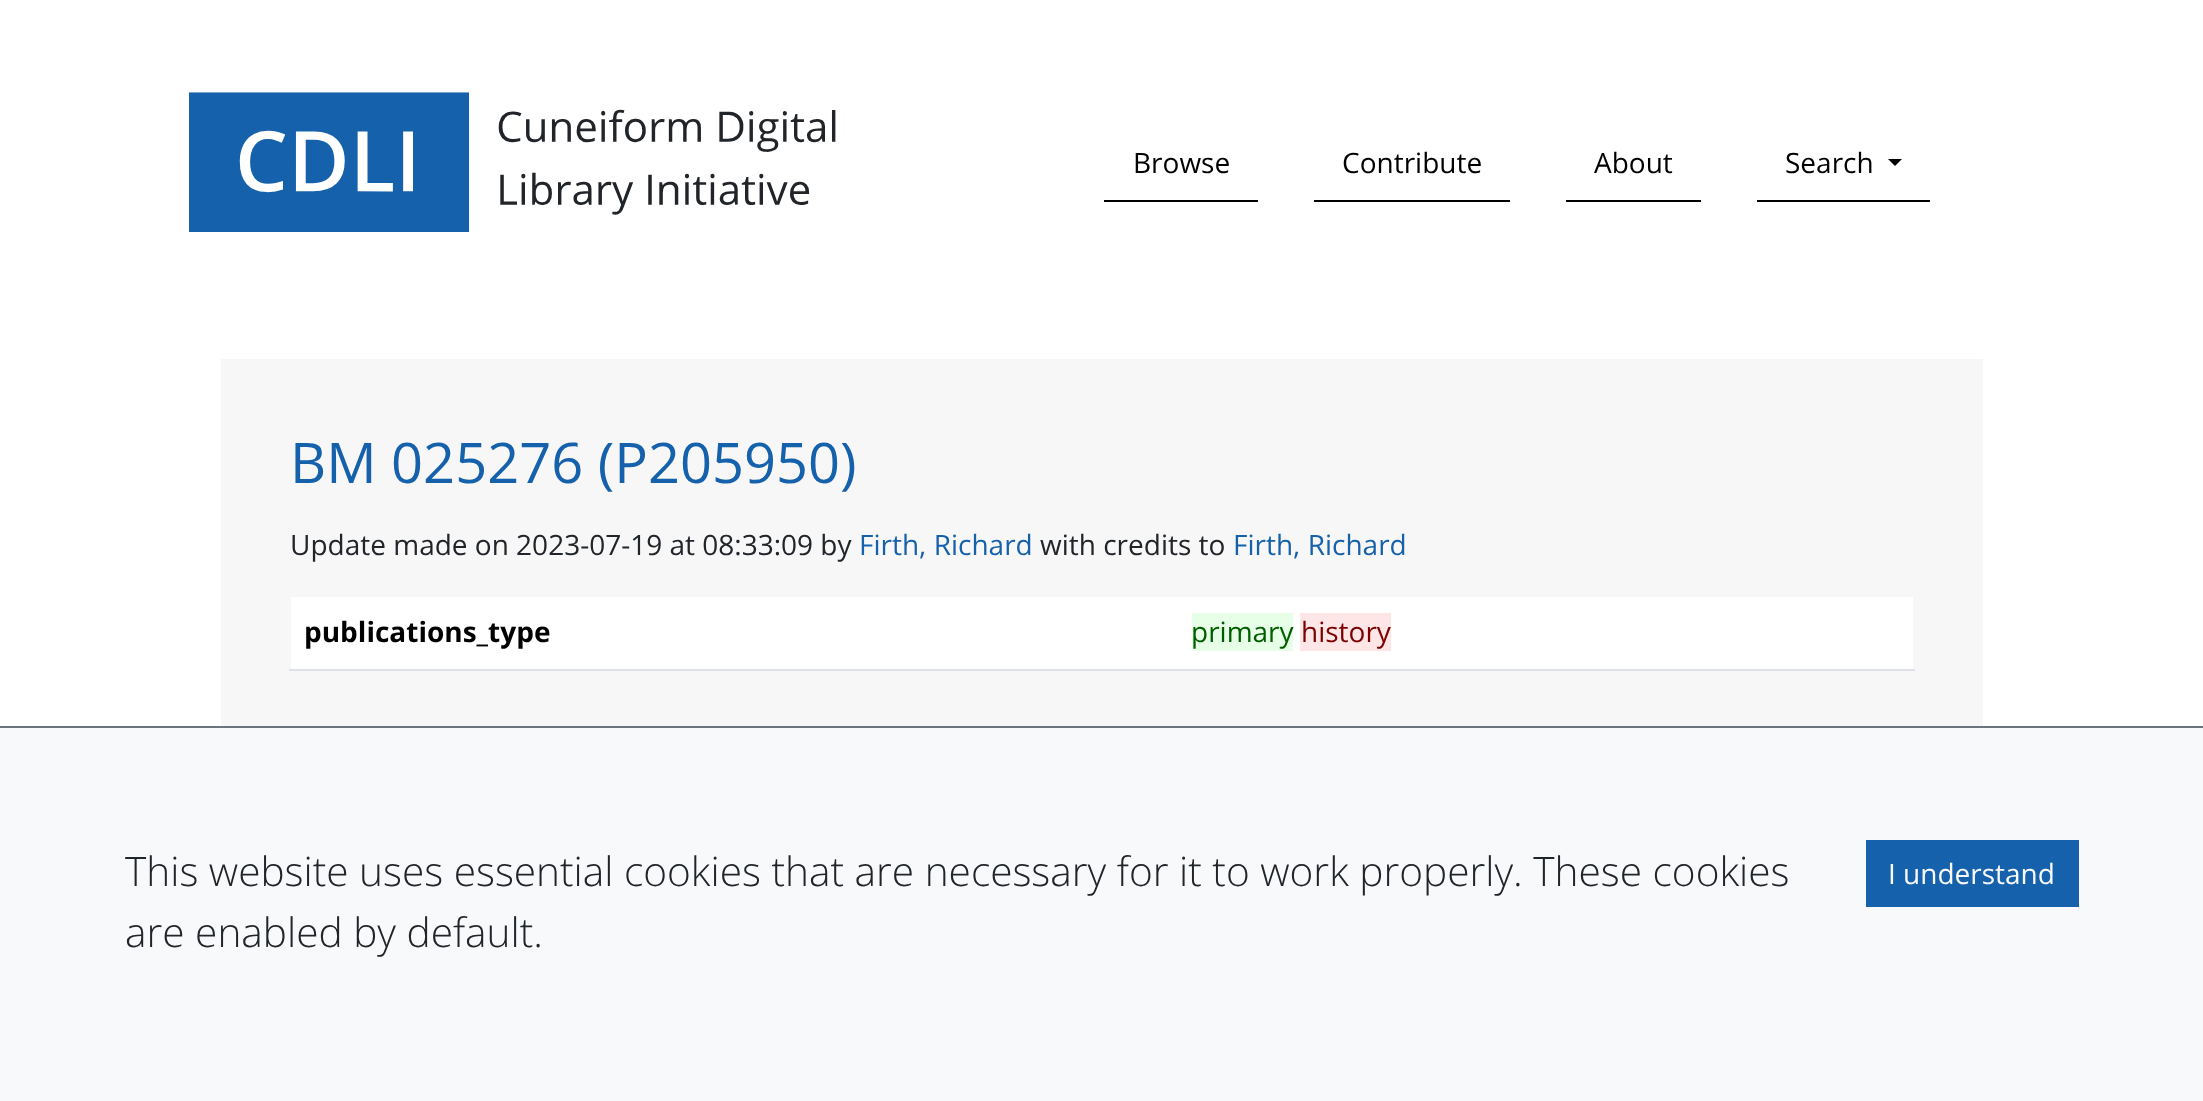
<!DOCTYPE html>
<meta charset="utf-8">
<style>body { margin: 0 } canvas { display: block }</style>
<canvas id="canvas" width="2203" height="1101"></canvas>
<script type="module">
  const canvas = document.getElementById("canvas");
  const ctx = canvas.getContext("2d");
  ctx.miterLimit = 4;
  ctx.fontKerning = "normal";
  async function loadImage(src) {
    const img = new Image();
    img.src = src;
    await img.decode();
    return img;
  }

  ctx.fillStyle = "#ffffff";
  ctx.fillRect(0, 0, 2203, 1101);
  ctx.drawImage(await loadImage("img1.png"), 189, 92, 647, 140);
  ctx.fillStyle = "#000000";
  ctx.fillRect(1104, 200, 154, 2);
  ctx.font = "28px Open Sans";
  ctx.fillText("Browse", 1133, 173);
  ctx.fillRect(1314, 200, 196, 2);
  ctx.fillText("Contribute", 1342, 173);
  ctx.fillRect(1566, 200, 135, 2);
  ctx.fillText("About", 1594, 173);
  ctx.fillRect(1757, 200, 173, 2);
  ctx.fillText("Search", 1785, 173);
  ctx.beginPath();
  ctx.moveTo(1888, 159);
  ctx.lineTo(1902, 159);
  ctx.lineTo(1895, 166);
  ctx.closePath();
  ctx.fill();
  ctx.fillStyle = "#f7f7f7";
  ctx.fillRect(221, 359, 1762, 367);
  ctx.font = "56px Open Sans";
  ctx.fillStyle = "#1661ab";
  ctx.fillText("BM 025276 (P205950)", 290, 483);
  ctx.font = "28px Open Sans";
  ctx.fillStyle = "#212529";
  ctx.fillText("Update made on 2023-07-19 at 08:33:09 by", 290, 555);
  ctx.fillStyle = "#1661ab";
  ctx.fillText("Firth, Richard", 859, 555);
  ctx.fillStyle = "#212529";
  ctx.fillText("with credits to", 1040, 555);
  ctx.fillStyle = "#1661ab";
  ctx.fillText("Firth, Richard", 1233, 555);
  ctx.fillStyle = "#ffffff";
  ctx.fillRect(291, 597, 1622, 72);
  ctx.font = "bold 28px Open Sans";
  ctx.fillStyle = "#000000";
  ctx.fillText("publications_type", 304, 642);
  ctx.fillStyle = "#dee2e6";
  ctx.fillRect(289, 669, 1626, 2);
  ctx.fillStyle = "#e6ffe6";
  ctx.fillRect(1192, 613, 101, 38);
  ctx.font = "28px Open Sans";
  ctx.fillStyle = "#005e00";
  ctx.fillText("primary", 1191, 642);
  ctx.fillStyle = "#ffe6e6";
  ctx.fillRect(1300, 613, 91, 38);
  ctx.fillStyle = "#7d0000";
  ctx.fillText("history", 1301, 642);
  ctx.fillStyle = "#f8f9fa";
  ctx.fillRect(0, 728, 2203, 373);
  ctx.fillStyle = "#6c757d";
  ctx.fillRect(0, 726, 2203, 2);
  ctx.font = "300 40.6px Open Sans";
  ctx.fillStyle = "#212529";
  ctx.fillText("This website uses essential cookies that are necessary for it to work properly. These cookies", 125, 886);
  ctx.fillText("are enabled by default.", 125, 947);
  ctx.fillStyle = "#1661ab";
  ctx.fillRect(1866, 840, 213, 67);
  ctx.font = "28px Open Sans";
  ctx.fillStyle = "#fafafa";
  ctx.fillText("I understand", 1888, 884);
</script>
